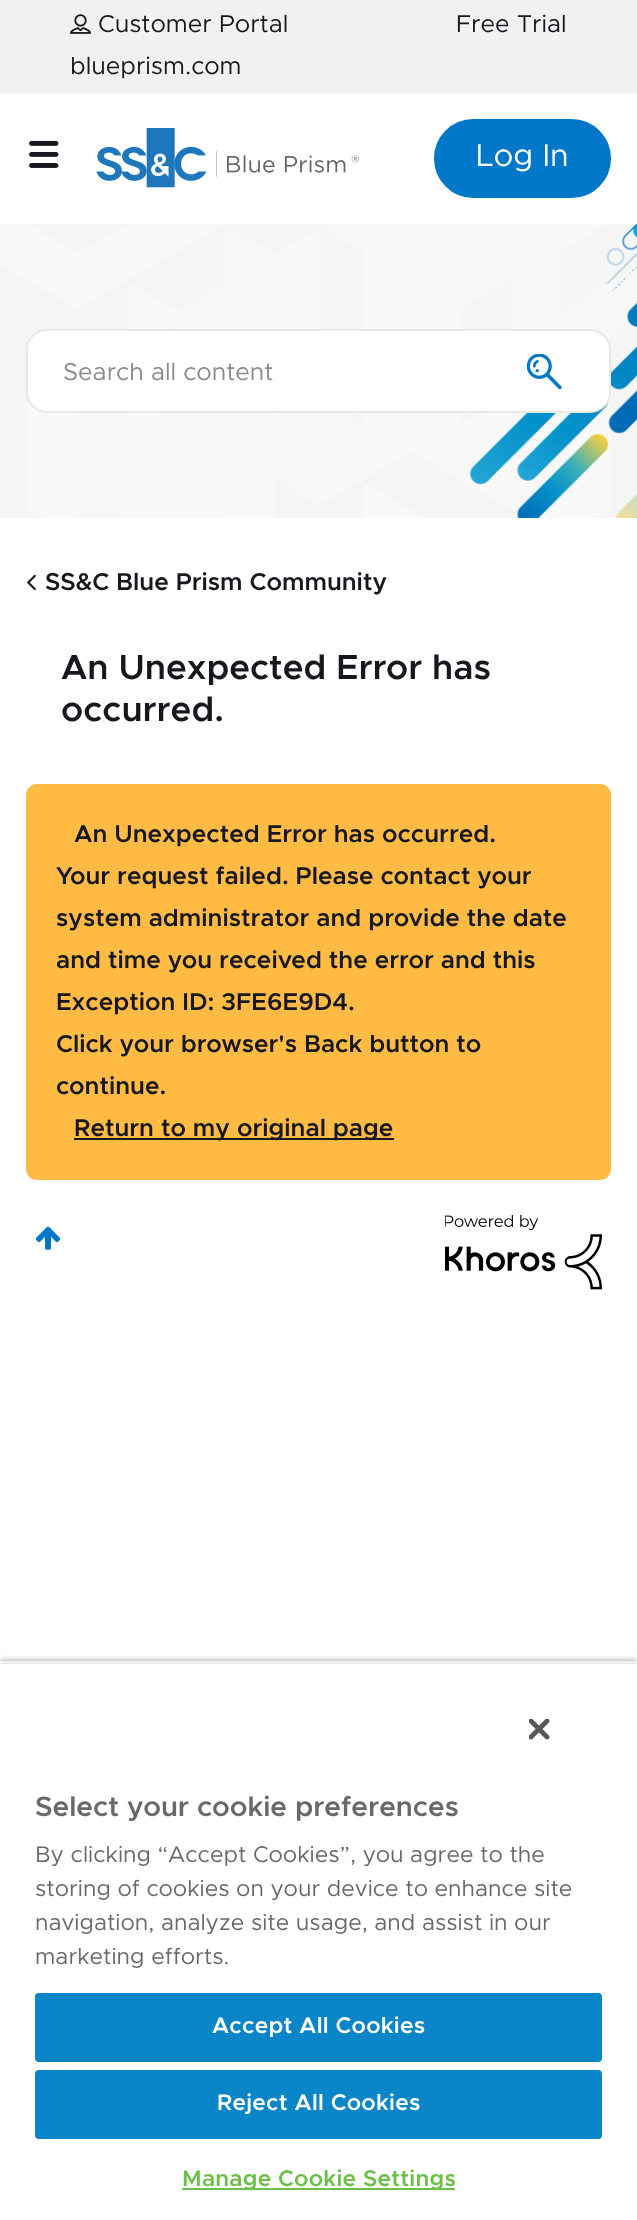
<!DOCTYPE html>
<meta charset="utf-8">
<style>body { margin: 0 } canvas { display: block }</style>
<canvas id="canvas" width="637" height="2220"></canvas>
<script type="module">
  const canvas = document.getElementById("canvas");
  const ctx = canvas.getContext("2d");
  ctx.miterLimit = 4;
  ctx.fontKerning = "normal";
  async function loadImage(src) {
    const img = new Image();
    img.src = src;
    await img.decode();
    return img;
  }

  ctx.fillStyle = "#ffffff";
  ctx.fillRect(0, 0, 637, 2220);
  ctx.fillStyle = "#f1f1f1";
  ctx.fillRect(0, 0, 637, 93);
  ctx.drawImage(await loadImage("img1.png"), 70, 14, 21, 20);
  ctx.font = "24.5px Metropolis";
  ctx.fillStyle = "#17171e";
  ctx.fillText("Customer Portal", 98, 32);
  ctx.fillText("Free Trial", 456, 32);
  ctx.fillText("blueprism.com", 70, 74);
  ctx.drawImage(await loadImage("img2.png"), 29, 140, 30, 28);
  ctx.drawImage(await loadImage("img3.png"), 96, 128, 263, 60);
  ctx.fillStyle = "#0077c8";
  ctx.beginPath();
  ctx.roundRect(436, 121, 173, 75, 37.5);
  ctx.fill();
  ctx.strokeStyle = "#0077c8";
  ctx.lineWidth = 4;
  ctx.stroke();
  ctx.font = "31.5px Metropolis";
  ctx.fillStyle = "#ffffff";
  ctx.fillText("Log In", 476, 166);
  ctx.drawImage(await loadImage("img4.png"), 0, 224, 637, 294);
  ctx.beginPath();
  ctx.roundRect(27, 330, 583, 82, 20);
  ctx.fill();
  ctx.strokeStyle = "#e9e9e2";
  ctx.lineWidth = 2;
  ctx.stroke();
  ctx.font = "24.5px Metropolis";
  ctx.fillStyle = "#8b8b8f";
  ctx.fillText("Search all content", 63, 380);
  ctx.drawImage(await loadImage("img5.png"), 527, 354, 35, 35);
  ctx.drawImage(await loadImage("img6.png"), 27, 574, 9, 17);
  ctx.font = "600 24.5px Metropolis";
  ctx.fillStyle = "#17171e";
  ctx.fillText("SS&C Blue Prism Community", 45, 590);
  ctx.font = "600 35px Metropolis";
  ctx.fillText("An Unexpected Error has", 61, 679);
  ctx.fillText("occurred.", 61, 721);
  ctx.fillStyle = "#ffbb44";
  ctx.beginPath();
  ctx.roundRect(28, 786, 581, 392, 9);
  ctx.fill();
  ctx.strokeStyle = "#ffbb44";
  ctx.lineWidth = 4;
  ctx.stroke();
  ctx.font = "600 24.5px Metropolis";
  ctx.fillStyle = "#17171e";
  ctx.fillText("An Unexpected Error has occurred.", 74, 842);
  ctx.fillText("Your request failed. Please contact your", 56, 884);
  ctx.fillText("system administrator and provide the date", 56, 926);
  ctx.fillText("and time you received the error and this", 56, 968);
  ctx.fillText("Exception ID: 3FE6E9D4.", 56, 1010);
  ctx.fillText("Click your browser's Back button to", 56, 1052);
  ctx.fillText("continue.", 56, 1094);
  ctx.fillRect(74, 1138, 320, 2);
  ctx.fillText("Return to my original page", 74, 1136);
  ctx.drawImage(await loadImage("img7.png"), 35, 1226, 26, 24);
  ctx.drawImage(await loadImage("img8.png"), 445, 1215, 157, 75);
  ctx.save();
  ctx.beginPath();
  ctx.rect(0, 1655, 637, 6);
  ctx.clip();
  ctx.fillStyle = "rgba(0, 0, 0, 0.35)";
  ctx.filter = "blur(3.5px)";
  ctx.beginPath();
  ctx.rect(0, 1661, 637, 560);
  ctx.fill();
  ctx.filter = "none";
  ctx.restore();
  ctx.fillStyle = "rgba(0, 0, 0, 0.2)";
  ctx.filter = "blur(3.5px)";
  ctx.beginPath();
  ctx.rect(0, 1664, 637, 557);
  ctx.fill();
  ctx.filter = "none";
  ctx.fillStyle = "#ffffff";
  ctx.fillRect(0, 1664, 637, 556);
  ctx.drawImage(await loadImage("img9.png"), 529, 1719, 21, 21);
  ctx.font = "600 28px Metropolis";
  ctx.fillStyle = "#696969";
  ctx.fillText("Select your cookie preferences", 35, 1816);
  ctx.font = "22.75px Metropolis";
  ctx.fillText("By clicking “Accept Cookies”, you agree to the", 35, 1862);
  ctx.fillText("storing of cookies on your device to enhance site", 35, 1896);
  ctx.fillText("navigation, analyze site usage, and assist in our", 35, 1930);
  ctx.fillText("marketing efforts.", 35, 1964);
  ctx.fillStyle = "#0a85c7";
  ctx.beginPath();
  ctx.roundRect(36, 1994, 565, 67, 3);
  ctx.fill();
  ctx.strokeStyle = "#0a85c7";
  ctx.lineWidth = 2;
  ctx.stroke();
  ctx.letterSpacing = "0.25px";
  ctx.font = "600 22.75px Metropolis";
  ctx.fillStyle = "#ffffff";
  ctx.fillText("Accept All Cookies", 212, 2033);
  ctx.fillStyle = "#0a85c7";
  ctx.beginPath();
  ctx.roundRect(36, 2071, 565, 67, 3);
  ctx.fill();
  ctx.stroke();
  ctx.fillStyle = "#ffffff";
  ctx.fillText("Reject All Cookies", 217, 2110);
  ctx.fillStyle = "#6cc04a";
  ctx.fillRect(182, 2188, 273, 2);
  ctx.fillText("Manage Cookie Settings", 182, 2186);
</script>
